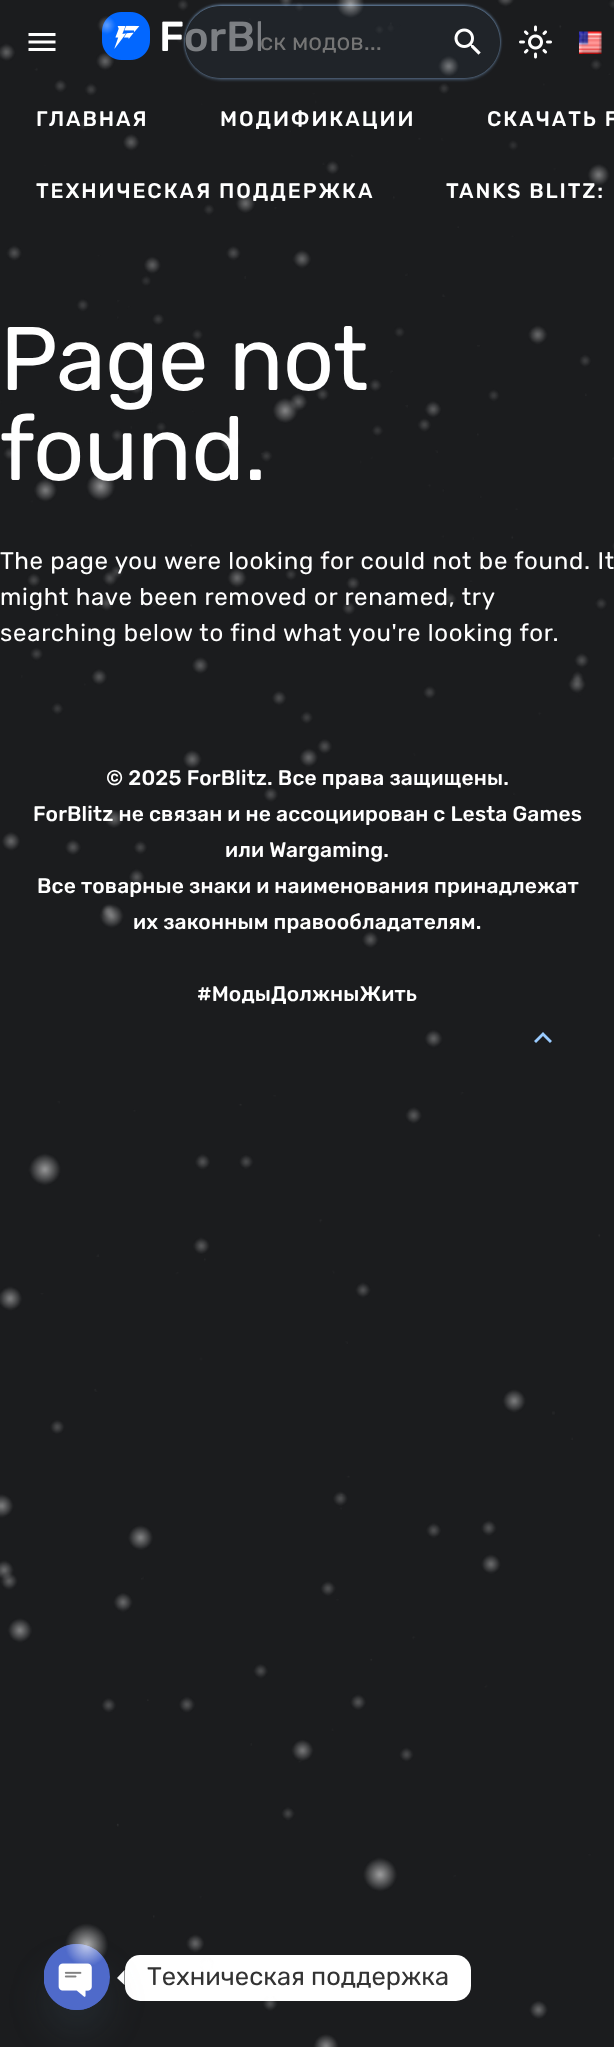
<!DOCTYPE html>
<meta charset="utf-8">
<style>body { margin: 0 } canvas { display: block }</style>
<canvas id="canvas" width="614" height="2047"></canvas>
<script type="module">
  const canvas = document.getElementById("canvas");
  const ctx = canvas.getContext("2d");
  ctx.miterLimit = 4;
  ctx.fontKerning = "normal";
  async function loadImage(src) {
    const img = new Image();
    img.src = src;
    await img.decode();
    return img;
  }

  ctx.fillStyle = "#1b1c1e";
  ctx.fillRect(0, 0, 614, 2047);
  ctx.drawImage(await loadImage("img2.png"), 28, 33, 28, 18);
  ctx.drawImage(await loadImage("img3.png"), 102, 12, 159, 48);
  ctx.save();
  ctx.beginPath();
  ctx.moveTo(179, 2);
  ctx.lineTo(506, 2);
  ctx.lineTo(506, 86);
  ctx.lineTo(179, 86);
  ctx.closePath();
  ctx.moveTo(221, 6);
  ctx.lineTo(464, 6);
  ctx.bezierCurveTo(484, 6, 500, 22, 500, 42);
  ctx.bezierCurveTo(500, 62, 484, 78, 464, 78);
  ctx.lineTo(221, 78);
  ctx.bezierCurveTo(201, 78, 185, 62, 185, 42);
  ctx.bezierCurveTo(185, 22, 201, 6, 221, 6);
  ctx.closePath();
  ctx.clip("evenodd");
  ctx.fillStyle = "rgba(154, 203, 255, 0.3)";
  ctx.filter = "blur(1.5px)";
  ctx.beginPath();
  ctx.roundRect(185, 8, 315, 72, 36);
  ctx.fill();
  ctx.filter = "none";
  ctx.restore();
  ctx.save();
  ctx.beginPath();
  ctx.moveTo(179, 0);
  ctx.lineTo(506, 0);
  ctx.lineTo(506, 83);
  ctx.lineTo(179, 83);
  ctx.closePath();
  ctx.moveTo(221, 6);
  ctx.lineTo(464, 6);
  ctx.bezierCurveTo(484, 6, 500, 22, 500, 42);
  ctx.bezierCurveTo(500, 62, 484, 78, 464, 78);
  ctx.lineTo(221, 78);
  ctx.bezierCurveTo(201, 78, 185, 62, 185, 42);
  ctx.bezierCurveTo(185, 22, 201, 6, 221, 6);
  ctx.closePath();
  ctx.clip("evenodd");
  ctx.fillStyle = "rgba(154, 203, 255, 0.7)";
  ctx.filter = "blur(1.5px)";
  ctx.beginPath();
  ctx.roundRect(185, 5, 315, 72, 36);
  ctx.fill();
  ctx.filter = "none";
  ctx.restore();
  ctx.fillStyle = "rgba(37, 42, 48, 0.6)";
  ctx.beginPath();
  ctx.roundRect(185, 6, 315, 72, 36);
  ctx.fill();
  ctx.font = "300 24px Rubik";
  ctx.fillStyle = "#757575";
  ctx.fillText("ск модов...", 260, 50);
  ctx.drawImage(await loadImage("img4.png"), 454, 28, 27, 27);
  ctx.drawImage(await loadImage("img5.png"), 519, 25, 33, 34);
  ctx.drawImage(await loadImage("img6.png"), 579, 31, 23, 23);
  ctx.letterSpacing = "1.9px";
  ctx.font = "500 21px Rubik";
  ctx.fillStyle = "#ffffff";
  ctx.fillText("ГЛАВНАЯ", 36, 126);
  ctx.fillText("МОДИФИКАЦИИ", 220, 126);
  ctx.fillText("СКАЧАТЬ F", 487, 126);
  ctx.fillText("ТЕХНИЧЕСКАЯ ПОДДЕРЖКА", 36, 198);
  ctx.fillText("TANKS BLITZ:", 446, 198);
  ctx.letterSpacing = "-0.75px";
  ctx.font = "300 90px Rubik";
  ctx.fillText("Page not", 0, 390);
  ctx.fillText("found.", 0, 480);
  ctx.letterSpacing = "0.75px";
  ctx.font = "300 24px Rubik";
  ctx.fillText("The page you were looking for could not be found. It", 0, 569);
  ctx.fillText("might have been removed or renamed, try", 0, 605);
  ctx.fillText("searching below to find what you're looking for.", 0, 641);
  ctx.letterSpacing = "0.15px";
  ctx.font = "500 21px Rubik";
  ctx.fillText("© 2025 ForBlitz. Все права защищены.", 106, 785);
  ctx.fillText("ForBlitz не связан и не ассоциирован с Lesta Games", 33, 821);
  ctx.fillText("или Wargaming.", 225, 857);
  ctx.fillText("Все товарные знаки и наименования принадлежат", 37, 893);
  ctx.fillText("их законным правообладателям.", 133, 929);
  ctx.fillText("#МодыДолжныЖить", 197, 1001);
  ctx.fillStyle = "#9acbff";
  ctx.beginPath();
  ctx.moveTo(543, 1032);
  ctx.lineTo(534, 1041);
  ctx.lineTo(536, 1043);
  ctx.lineTo(543, 1036);
  ctx.lineTo(550, 1043);
  ctx.lineTo(552, 1041);
  ctx.closePath();
  ctx.fill();
  ctx.fillStyle = "#ffffff";
  ctx.beginPath();
  ctx.roundRect(125, 1955, 346, 46, 15);
  ctx.fill();
  ctx.beginPath();
  ctx.moveTo(124.5, 1970);
  ctx.lineTo(124.5, 1985);
  ctx.lineTo(117, 1978);
  ctx.closePath();
  ctx.fill();
  ctx.fillStyle = "rgba(73, 104, 126, 0.16)";
  ctx.filter = "blur(18px)";
  ctx.beginPath();
  ctx.roundRect(44, 1968, 66, 66, 33);
  ctx.fill();
  ctx.filter = "none";
  ctx.fillStyle = "#4f6aca";
  ctx.beginPath();
  ctx.arc(77, 1977, 33, 0, Math.PI * 2);
  ctx.fill();
  ctx.drawImage(await loadImage("img7.png"), 44, 1944, 60, 66);
  ctx.letterSpacing = "0px";
  ctx.font = "300 25.5px Rubik";
  ctx.fillStyle = "#333333";
  ctx.fillText("Техническая поддержка", 147, 1985);
  ctx.drawImage(await loadImage("img1.png"), 0, 0, 614, 2047);
</script>
